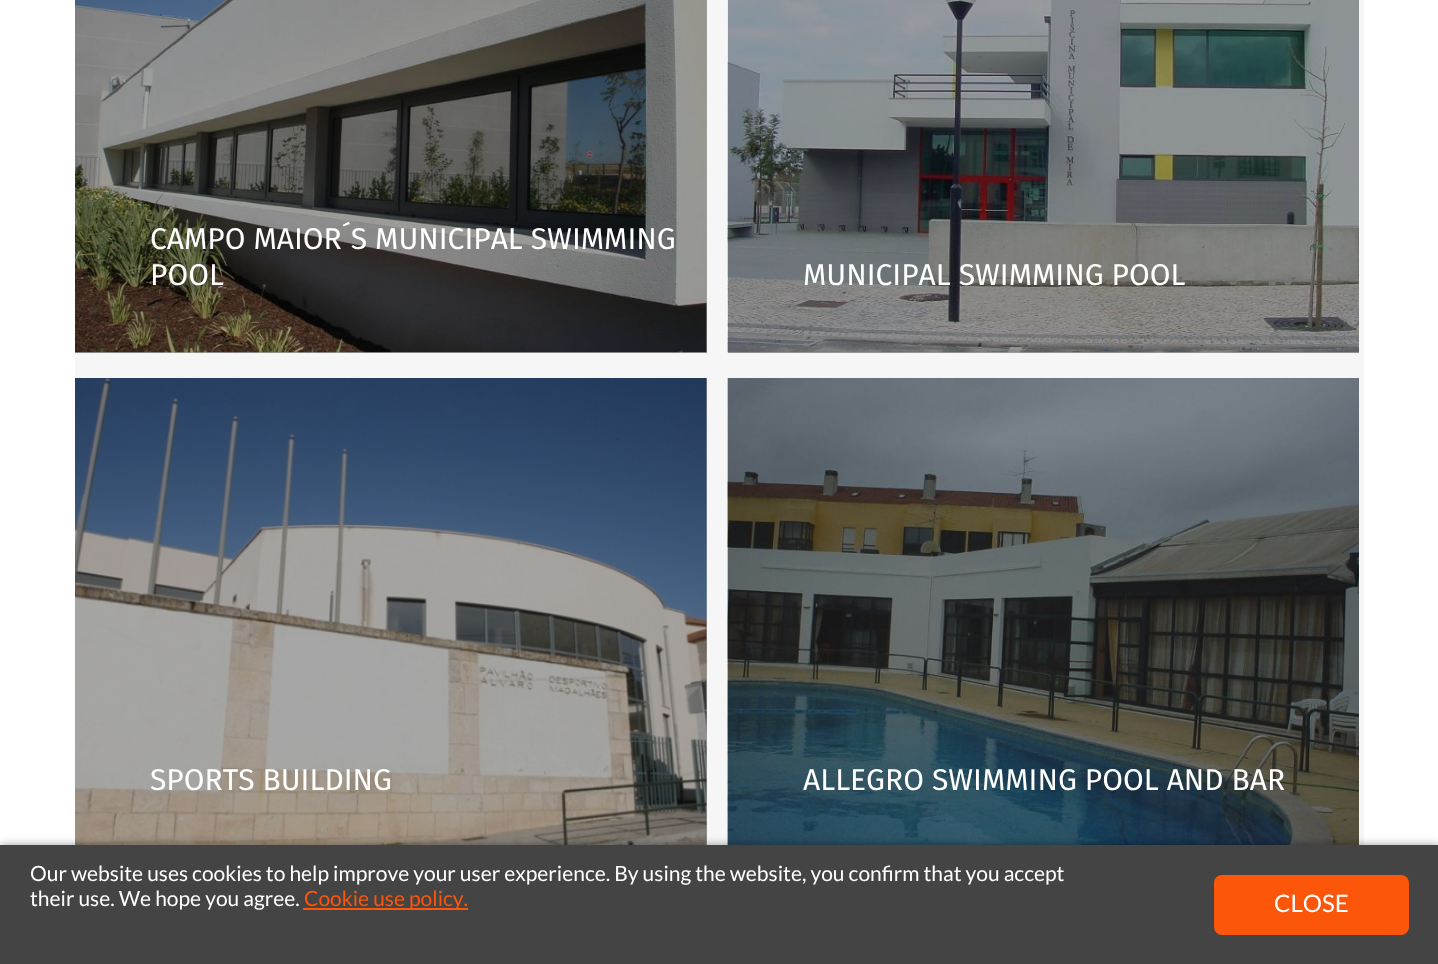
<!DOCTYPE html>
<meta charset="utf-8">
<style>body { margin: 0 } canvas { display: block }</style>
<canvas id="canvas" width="1438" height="964"></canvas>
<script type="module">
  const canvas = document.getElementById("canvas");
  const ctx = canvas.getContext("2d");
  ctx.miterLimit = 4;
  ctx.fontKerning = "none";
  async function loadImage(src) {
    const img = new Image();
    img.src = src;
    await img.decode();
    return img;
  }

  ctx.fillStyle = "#ffffff";
  ctx.fillRect(0, 0, 1438, 964);
  ctx.fillStyle = "#f6f6f6";
  ctx.fillRect(75, 0, 1289, 845);
  ctx.fillStyle = "#a0a0a0";
  ctx.fillRect(706, 378, 1, 467);
  ctx.fillRect(728, 352, 631, 1);
  ctx.fillRect(75, 0, 632, 353);
  ctx.drawImage(await loadImage("img1.png"), 75, 0, 632, 353);
  ctx.font = "30px Fira Sans";
  ctx.fillStyle = "#ffffff";
  ctx.fillText("CAMPO MAIOR´S MUNICIPAL SWIMMING", 150, 249);
  ctx.fillText("POOL", 150, 285);
  ctx.drawImage(await loadImage("img2.png"), 727, 0, 632, 353);
  ctx.fillText("MUNICIPAL SWIMMING POOL", 803, 285);
  ctx.drawImage(await loadImage("img3.png"), 75, 378, 632, 467);
  ctx.fillText("SPORTS BUILDING", 150, 790);
  ctx.drawImage(await loadImage("img4.png"), 727, 378, 632, 467);
  ctx.fillText("ALLEGRO SWIMMING POOL AND BAR", 803, 790);
  ctx.fillStyle = "rgba(0, 0, 0, 0.4)";
  ctx.filter = "blur(4px)";
  ctx.beginPath();
  ctx.rect(0, 845, 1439, 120);
  ctx.fill();
  ctx.filter = "none";
  ctx.fillStyle = "#444444";
  ctx.fillRect(0, 845, 1438, 119);
  ctx.font = "21px Lato";
  ctx.fillStyle = "#ffffff";
  ctx.fillText("Our website uses cookies to help improve your user experience. By using the website, you confirm that you accept", 30, 881);
  ctx.fillText("their use. We hope you agree.", 30, 906);
  ctx.fillStyle = "#fc560b";
  ctx.fillRect(303, 908, 165, 2);
  ctx.fillText("Cookie use policy.", 304, 906);
  ctx.beginPath();
  ctx.roundRect(1214, 875, 195, 60, 8);
  ctx.fill();
  ctx.font = "24px Lato";
  ctx.fillStyle = "#ffffff";
  ctx.fillText("CLOSE", 1274, 912);
</script>
